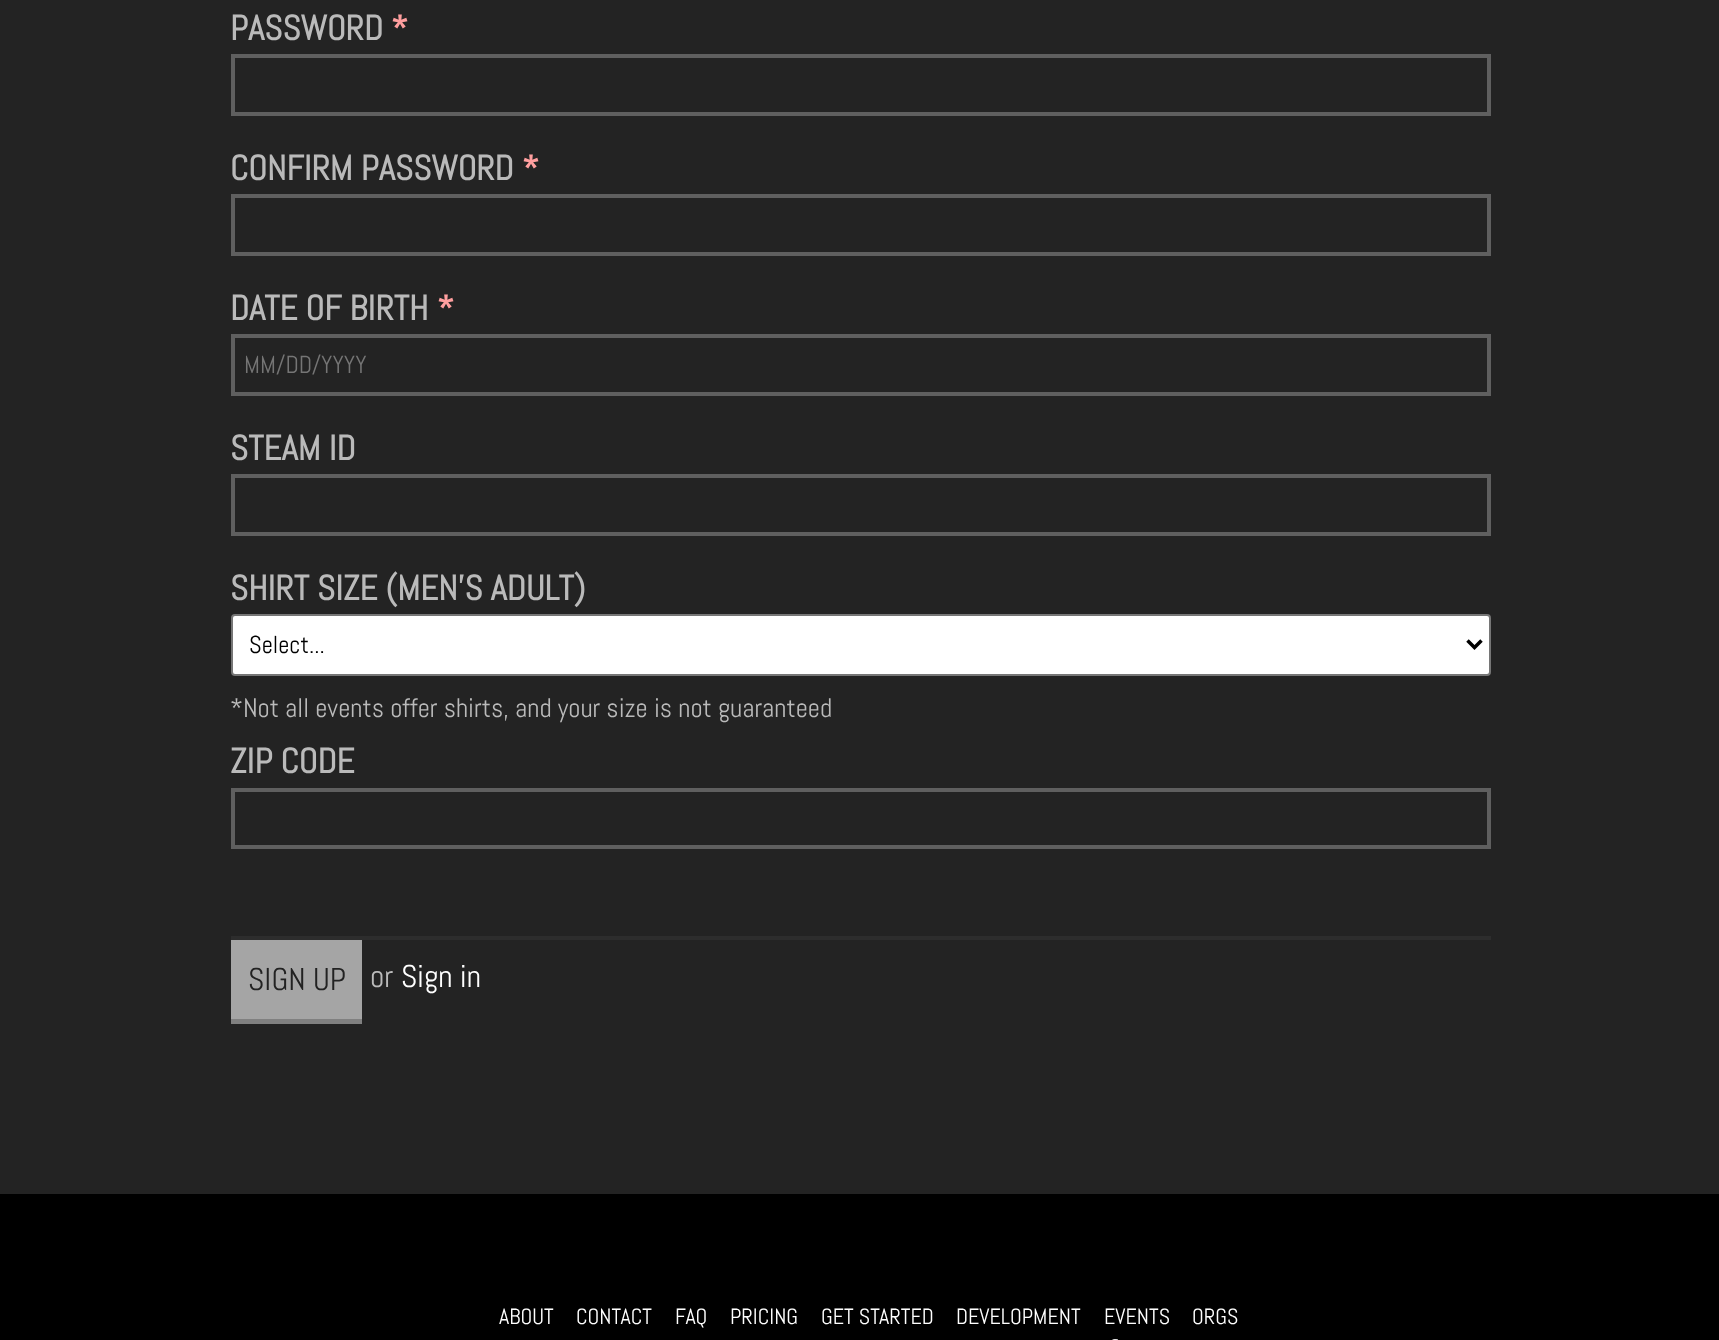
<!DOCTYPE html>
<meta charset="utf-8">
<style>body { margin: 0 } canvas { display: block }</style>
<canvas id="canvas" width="1719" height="1340"></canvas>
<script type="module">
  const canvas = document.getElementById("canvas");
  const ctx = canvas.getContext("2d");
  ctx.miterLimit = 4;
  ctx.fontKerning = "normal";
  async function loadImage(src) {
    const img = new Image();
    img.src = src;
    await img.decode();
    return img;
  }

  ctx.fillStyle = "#000000";
  ctx.fillRect(0, 0, 1719, 1340);
  ctx.fillStyle = "#232323";
  ctx.fillRect(0, 0, 1719, 1194);
  ctx.font = "bold 35px Abel";
  ctx.fillStyle = "#bababa";
  ctx.fillText("PASSWORD", 230, 40);
  ctx.fillStyle = "#ff9f9f";
  ctx.fillText("*", 391, 40);
  ctx.strokeStyle = "#5f5f5f";
  ctx.lineWidth = 4;
  ctx.strokeRect(233, 56, 1256, 58);
  ctx.fillStyle = "#bababa";
  ctx.fillText("CONFIRM PASSWORD", 230, 180);
  ctx.fillStyle = "#ff9f9f";
  ctx.fillText("*", 522, 180);
  ctx.strokeRect(233, 196, 1256, 58);
  ctx.fillStyle = "#bababa";
  ctx.fillText("DATE OF BIRTH", 230, 320);
  ctx.fillStyle = "#ff9f9f";
  ctx.fillText("*", 437, 320);
  ctx.strokeRect(233, 336, 1256, 58);
  ctx.font = "24.5px Abel";
  ctx.fillStyle = "#757575";
  ctx.fillText("MM/DD/YYYY", 244, 373);
  ctx.font = "bold 35px Abel";
  ctx.fillStyle = "#bababa";
  ctx.fillText("STEAM ID", 230, 460);
  ctx.strokeRect(233, 476, 1256, 58);
  ctx.fillText("SHIRT SIZE (MEN'S ADULT)", 230, 600);
  ctx.fillStyle = "#ffffff";
  ctx.beginPath();
  ctx.roundRect(232, 615, 1258, 60, 3);
  ctx.fill();
  ctx.strokeStyle = "#767676";
  ctx.lineWidth = 2;
  ctx.stroke();
  ctx.beginPath();
  ctx.moveTo(1467.5, 640.5);
  ctx.lineTo(1474.5, 647.5);
  ctx.lineTo(1481.5, 640.5);
  ctx.strokeStyle = "#000000";
  ctx.lineWidth = 3.5;
  ctx.stroke();
  ctx.font = "24.5px Abel";
  ctx.fillStyle = "#000000";
  ctx.fillText("Select...", 249, 653);
  ctx.font = "26.75px Abel";
  ctx.fillStyle = "#bababa";
  ctx.fillText("*Not all events offer shirts, and your size is not guaranteed", 230, 717);
  ctx.font = "bold 35px Abel";
  ctx.fillText("ZIP CODE", 230, 773);
  ctx.strokeStyle = "#5f5f5f";
  ctx.lineWidth = 4;
  ctx.strokeRect(233, 790, 1256, 57);
  ctx.fillStyle = "#2d2d2d";
  ctx.fillRect(231, 936, 1260, 4);
  ctx.fillStyle = "#808080";
  ctx.fillRect(231, 1019, 131, 5);
  ctx.fillStyle = "#a5a5a5";
  ctx.fillRect(231, 940, 131, 79);
  ctx.font = "31.5px Abel";
  ctx.fillStyle = "#222222";
  ctx.fillText("SIGN UP", 248, 990);
  ctx.fillStyle = "#bababa";
  ctx.fillText("or", 370, 987);
  ctx.fillStyle = "#ffffff";
  ctx.fillText("Sign in", 401, 987);
  ctx.font = "22px Abel";
  ctx.fillText("ABOUT", 499, 1324);
  ctx.fillText("CONTACT", 576, 1324);
  ctx.fillText("FAQ", 675, 1324);
  ctx.fillText("PRICING", 730, 1324);
  ctx.fillText("GET STARTED", 821, 1324);
  ctx.fillText("DEVELOPMENT", 956, 1324);
  ctx.fillText("EVENTS", 1104, 1324);
  ctx.fillText("ORGS", 1192, 1324);
  ctx.drawImage(await loadImage("img1.png"), 1112, 1339, 6, 1);
</script>
